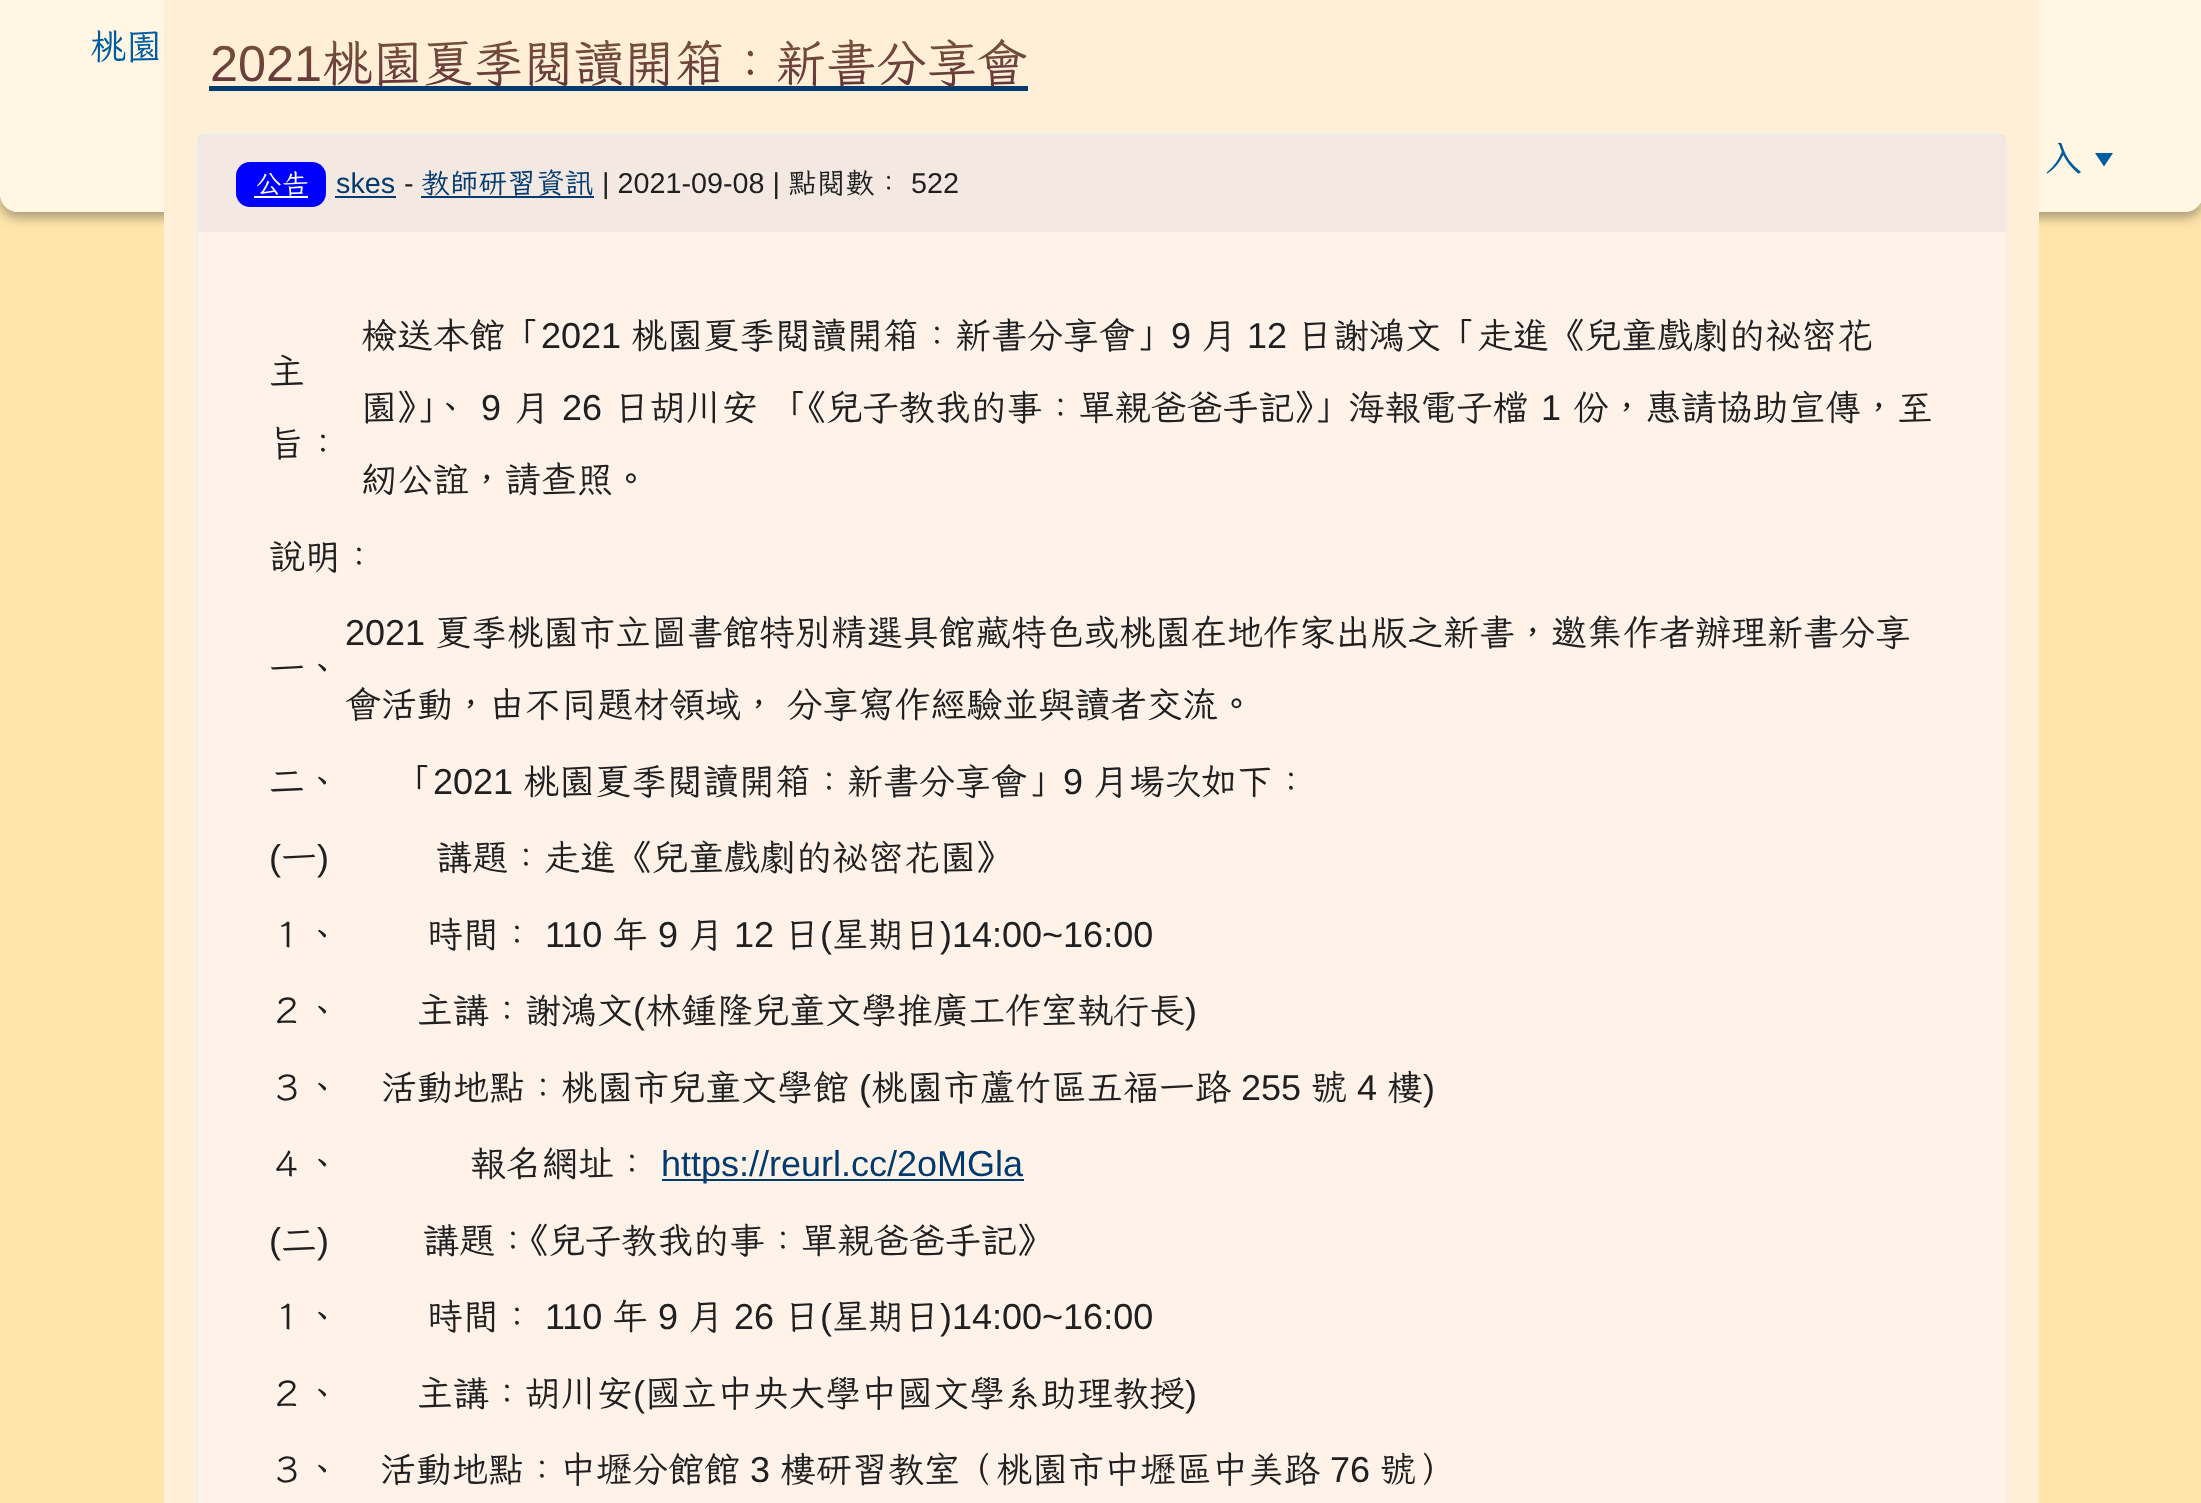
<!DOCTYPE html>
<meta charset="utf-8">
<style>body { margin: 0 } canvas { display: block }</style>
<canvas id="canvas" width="2201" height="1503"></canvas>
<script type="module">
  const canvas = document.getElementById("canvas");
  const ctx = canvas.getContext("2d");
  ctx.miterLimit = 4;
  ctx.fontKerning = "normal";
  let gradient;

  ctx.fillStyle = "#ffe5aa";
  ctx.fillRect(0, 0, 2201, 1503);
  ctx.save();
  ctx.beginPath();
  ctx.moveTo(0, 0);
  ctx.lineTo(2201, 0);
  ctx.lineTo(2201, 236);
  ctx.lineTo(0, 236);
  ctx.closePath();
  ctx.moveTo(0, 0);
  ctx.lineTo(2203, 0);
  ctx.lineTo(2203, 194);
  ctx.bezierCurveTo(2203, 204, 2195, 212, 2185, 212);
  ctx.lineTo(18, 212);
  ctx.bezierCurveTo(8, 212, 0, 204, 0, 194);
  ctx.closePath();
  ctx.clip("evenodd");
  ctx.fillStyle = "rgba(50, 50, 50, 0.4)";
  ctx.filter = "blur(5.5px)";
  ctx.beginPath();
  ctx.roundRect(0, 7, 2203, 211, 18);
  ctx.fill();
  ctx.filter = "none";
  ctx.restore();
  ctx.fillStyle = "rgba(255, 255, 255, 0.67)";
  ctx.beginPath();
  ctx.moveTo(0, 0);
  ctx.lineTo(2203, 0);
  ctx.lineTo(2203, 194);
  ctx.bezierCurveTo(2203, 204, 2195, 212, 2185, 212);
  ctx.lineTo(18, 212);
  ctx.bezierCurveTo(8, 212, 0, 204, 0, 194);
  ctx.closePath();
  ctx.fill();
  ctx.font = "36px 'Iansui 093'";
  ctx.fillStyle = "#005ca0";
  ctx.fillText("桃園", 90, 59);
  ctx.fillText("入", 2045, 171);
  ctx.beginPath();
  ctx.moveTo(2095, 153);
  ctx.lineTo(2113, 153);
  ctx.lineTo(2104, 166.5);
  ctx.closePath();
  ctx.fill();
  ctx.fillStyle = "#ffefd6";
  ctx.fillRect(164, 0, 1875, 1503);
  ctx.font = "50.4px Liberation Sans";
  gradient = ctx.createLinearGradient(1101, 20, 1101, 110);
  gradient.addColorStop(0, "#7e5c40");
  gradient.addColorStop(1, "#5c2938");
  ctx.fillStyle = gradient;
  ctx.fillText("2021", 210, 81);
  ctx.fillStyle = "#003a6e";
  ctx.fillRect(209, 86, 819, 5);
  ctx.font = "50.4px 'Iansui 093'";
  gradient = ctx.createLinearGradient(1101, 20, 1101, 110);
  gradient.addColorStop(0, "#7e5c40");
  gradient.addColorStop(1, "#5c2938");
  ctx.fillStyle = gradient;
  ctx.fillText("桃園夏季閱讀開箱：新書分享會", 322, 81);
  ctx.fillStyle = "#fff2e9";
  ctx.beginPath();
  ctx.roundRect(197, 134, 1809, 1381, 10);
  ctx.fill();
  ctx.strokeStyle = "#efefef";
  ctx.lineWidth = 2;
  ctx.stroke();
  ctx.fillStyle = "rgba(200, 200, 200, 0.2)";
  ctx.fillRect(198, 135, 1807, 97);
  ctx.fillStyle = "#0000ff";
  ctx.beginPath();
  ctx.roundRect(236, 162, 90, 45, 14);
  ctx.fill();
  ctx.font = "27px 'Iansui 093'";
  ctx.fillStyle = "#ffffff";
  ctx.fillText("公告", 255, 193);
  ctx.fillRect(254, 196, 54, 2);
  ctx.font = "28.75px Liberation Sans";
  ctx.fillStyle = "#003a6e";
  ctx.fillText("skes", 336, 193);
  ctx.fillRect(335, 196, 61, 2);
  ctx.fillStyle = "#202020";
  ctx.fillText("-", 404, 193);
  ctx.font = "28.75px 'Iansui 093'";
  ctx.fillStyle = "#003a6e";
  ctx.fillText("教師研習資訊", 421, 193);
  ctx.fillRect(421, 196, 173, 2);
  ctx.font = "28.75px Liberation Sans";
  ctx.fillStyle = "#202020";
  ctx.fillText("| 2021-09-08 |", 602, 193);
  ctx.font = "28.75px 'Iansui 093'";
  ctx.fillText("點閱數：", 788, 193);
  ctx.font = "28.75px Liberation Sans";
  ctx.fillText("522", 911, 193);
  ctx.font = "36px 'Iansui 093'";
  ctx.fillText("主", 269, 384);
  ctx.fillText("旨：", 269, 456);
  ctx.fillText("檢送本館「", 361, 348);
  ctx.font = "36px Liberation Sans";
  ctx.fillText("2021", 541, 348);
  ctx.font = "36px 'Iansui 093'";
  ctx.fillText("桃園夏季閱讀開箱：新書分享會」", 631, 348);
  ctx.font = "36px Liberation Sans";
  ctx.fillText("9", 1171, 348);
  ctx.font = "36px 'Iansui 093'";
  ctx.fillText("月", 1201, 348);
  ctx.font = "36px Liberation Sans";
  ctx.fillText("12", 1247, 348);
  ctx.font = "36px 'Iansui 093'";
  ctx.fillText("日謝鴻文「走進《兒童戲劇的祕密花", 1297, 348);
  ctx.fillText("園》」、", 361, 420);
  ctx.font = "36px Liberation Sans";
  ctx.fillText("9", 481, 420);
  ctx.font = "36px 'Iansui 093'";
  ctx.fillText("月", 514, 420);
  ctx.font = "36px Liberation Sans";
  ctx.fillText("26", 562, 420);
  ctx.wordSpacing = "2px";
  ctx.font = "36px 'Iansui 093'";
  ctx.fillText("日胡川安 「《兒子教我的事：單親爸爸手記》」海報電子檔", 614, 420);
  ctx.wordSpacing = "0px";
  ctx.font = "36px Liberation Sans";
  ctx.fillText("1", 1541, 420);
  ctx.font = "36px 'Iansui 093'";
  ctx.fillText("份，惠請協助宣傳，至", 1573, 420);
  ctx.fillText("紉公誼，請查照。", 361, 492);
  ctx.fillText("說明：", 269, 569);
  ctx.fillText("一、", 269, 681);
  ctx.font = "36px Liberation Sans";
  ctx.fillText("2021", 345, 645);
  ctx.font = "36px 'Iansui 093'";
  ctx.fillText("夏季桃園市立圖書館特別精選具館藏特色或桃園在地作家出版之新書，邀集作者辦理新書分享", 435, 645);
  ctx.wordSpacing = "-3px";
  ctx.fillText("會活動，由不同題材領域， 分享寫作經驗並與讀者交流。", 345, 717);
  ctx.wordSpacing = "0px";
  ctx.fillText("二、", 269, 794);
  ctx.fillText("「", 397, 794);
  ctx.font = "36px Liberation Sans";
  ctx.fillText("2021", 433, 794);
  ctx.font = "36px 'Iansui 093'";
  ctx.fillText("桃園夏季閱讀開箱：新書分享會」", 523, 794);
  ctx.font = "36px Liberation Sans";
  ctx.fillText("9", 1063, 794);
  ctx.font = "36px 'Iansui 093'";
  ctx.fillText("月場次如下：", 1093, 794);
  ctx.font = "36px Liberation Sans";
  ctx.fillText("(", 269, 870);
  ctx.font = "36px 'Iansui 093'";
  ctx.fillText("一", 281, 870);
  ctx.font = "36px Liberation Sans";
  ctx.fillText(")", 317, 870);
  ctx.font = "36px 'Iansui 093'";
  ctx.fillText("講題：走進《兒童戲劇的祕密花園》", 436, 870);
  ctx.fillText("１、", 269, 947);
  ctx.fillText("時間：", 427, 947);
  ctx.font = "36px Liberation Sans";
  ctx.fillText("110", 545, 947);
  ctx.font = "36px 'Iansui 093'";
  ctx.fillText("年", 612, 947);
  ctx.font = "36px Liberation Sans";
  ctx.fillText("9", 658, 947);
  ctx.font = "36px 'Iansui 093'";
  ctx.fillText("月", 688, 947);
  ctx.font = "36px Liberation Sans";
  ctx.fillText("12", 734, 947);
  ctx.font = "36px 'Iansui 093'";
  ctx.fillText("日", 784, 947);
  ctx.font = "36px Liberation Sans";
  ctx.fillText("(", 820, 947);
  ctx.font = "36px 'Iansui 093'";
  ctx.fillText("星期日", 832, 947);
  ctx.font = "36px Liberation Sans";
  ctx.fillText(")14:00~16:00", 940, 947);
  ctx.font = "36px 'Iansui 093'";
  ctx.fillText("２、", 269, 1023);
  ctx.fillText("主講：謝鴻文", 417, 1023);
  ctx.font = "36px Liberation Sans";
  ctx.fillText("(", 633, 1023);
  ctx.font = "36px 'Iansui 093'";
  ctx.fillText("林鍾隆兒童文學推廣工作室執行長", 645, 1023);
  ctx.font = "36px Liberation Sans";
  ctx.fillText(")", 1185, 1023);
  ctx.font = "36px 'Iansui 093'";
  ctx.fillText("３、", 269, 1100);
  ctx.fillText("活動地點：桃園市兒童文學館", 381, 1100);
  ctx.font = "36px Liberation Sans";
  ctx.fillText("(", 859, 1100);
  ctx.font = "36px 'Iansui 093'";
  ctx.fillText("桃園市蘆竹區五福一路", 871, 1100);
  ctx.font = "36px Liberation Sans";
  ctx.fillText("255", 1241, 1100);
  ctx.font = "36px 'Iansui 093'";
  ctx.fillText("號", 1311, 1100);
  ctx.font = "36px Liberation Sans";
  ctx.fillText("4", 1357, 1100);
  ctx.font = "36px 'Iansui 093'";
  ctx.fillText("樓", 1387, 1100);
  ctx.font = "36px Liberation Sans";
  ctx.fillText(")", 1423, 1100);
  ctx.font = "36px 'Iansui 093'";
  ctx.fillText("４、", 269, 1176);
  ctx.fillText("報名網址：", 470, 1176);
  ctx.fillStyle = "#003a6e";
  ctx.fillRect(662, 1179, 362, 2);
  ctx.font = "36px Liberation Sans";
  ctx.fillText("https://reurl.cc/2oMGla", 661, 1176);
  ctx.fillStyle = "#202020";
  ctx.fillText("(", 269, 1253);
  ctx.font = "36px 'Iansui 093'";
  ctx.fillText("二", 281, 1253);
  ctx.font = "36px Liberation Sans";
  ctx.fillText(")", 317, 1253);
  ctx.font = "36px 'Iansui 093'";
  ctx.fillText("講題：《兒子教我的事：單親爸爸手記》", 423, 1253);
  ctx.fillText("１、", 269, 1329);
  ctx.fillText("時間：", 427, 1329);
  ctx.font = "36px Liberation Sans";
  ctx.fillText("110", 545, 1329);
  ctx.font = "36px 'Iansui 093'";
  ctx.fillText("年", 612, 1329);
  ctx.font = "36px Liberation Sans";
  ctx.fillText("9", 658, 1329);
  ctx.font = "36px 'Iansui 093'";
  ctx.fillText("月", 688, 1329);
  ctx.font = "36px Liberation Sans";
  ctx.fillText("26", 734, 1329);
  ctx.font = "36px 'Iansui 093'";
  ctx.fillText("日", 784, 1329);
  ctx.font = "36px Liberation Sans";
  ctx.fillText("(", 820, 1329);
  ctx.font = "36px 'Iansui 093'";
  ctx.fillText("星期日", 832, 1329);
  ctx.font = "36px Liberation Sans";
  ctx.fillText(")14:00~16:00", 940, 1329);
  ctx.font = "36px 'Iansui 093'";
  ctx.fillText("２、", 269, 1406);
  ctx.fillText("主講：胡川安", 417, 1406);
  ctx.font = "36px Liberation Sans";
  ctx.fillText("(", 633, 1406);
  ctx.font = "36px 'Iansui 093'";
  ctx.fillText("國立中央大學中國文學系助理教授", 645, 1406);
  ctx.font = "36px Liberation Sans";
  ctx.fillText(")", 1185, 1406);
  ctx.font = "36px 'Iansui 093'";
  ctx.fillText("３、", 269, 1482);
  ctx.fillText("活動地點：中壢分館館", 380, 1482);
  ctx.font = "36px Liberation Sans";
  ctx.fillText("3", 750, 1482);
  ctx.font = "36px 'Iansui 093'";
  ctx.fillText("樓研習教室（桃園市中壢區中美路", 780, 1482);
  ctx.font = "36px Liberation Sans";
  ctx.fillText("76", 1330, 1482);
  ctx.font = "36px 'Iansui 093'";
  ctx.fillText("號）", 1380, 1482);
</script>
